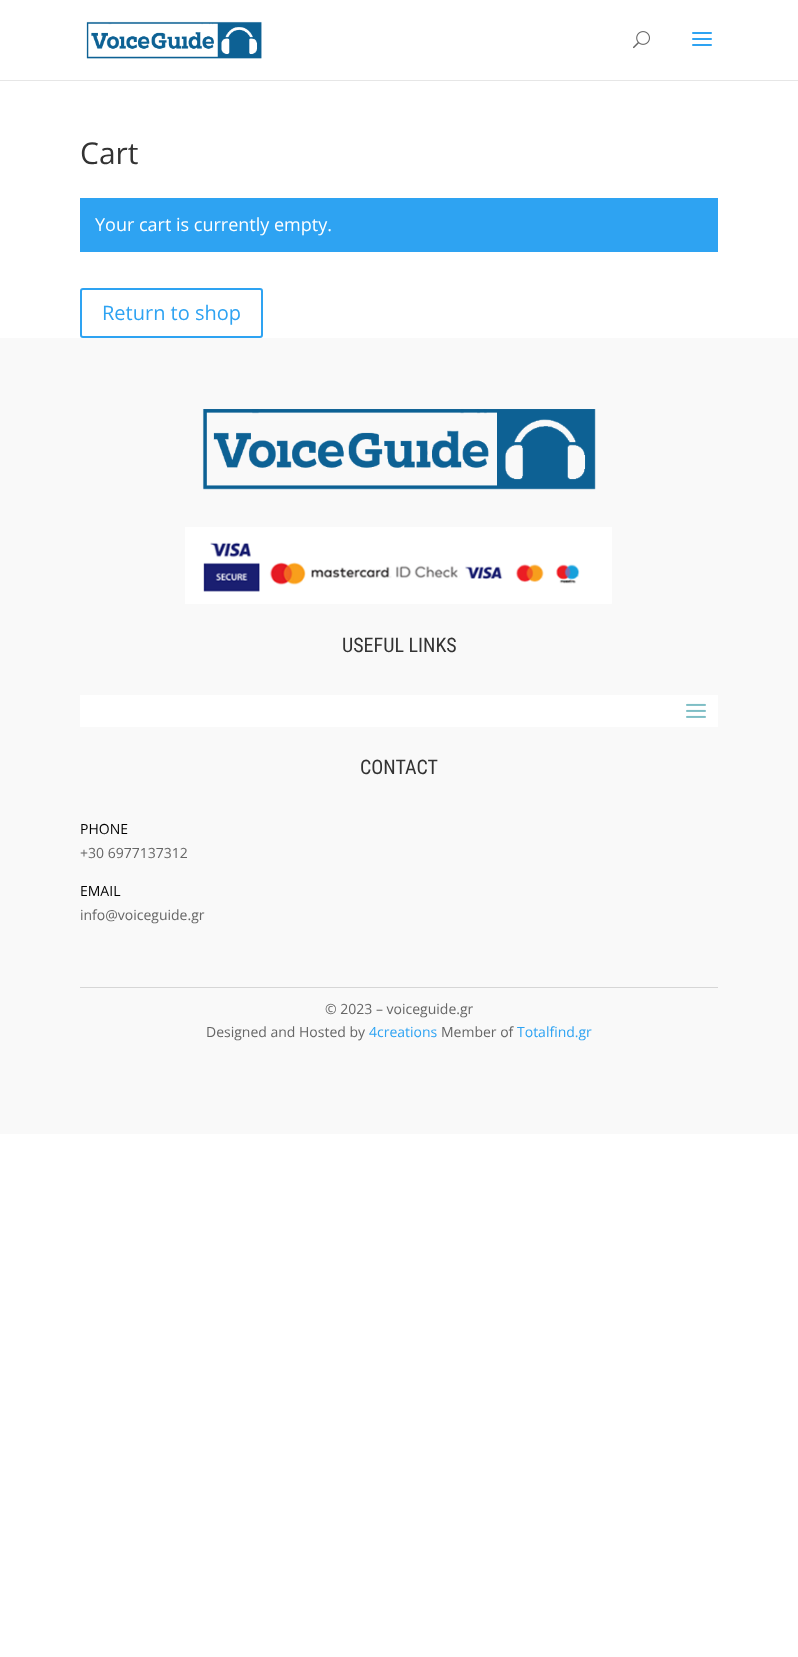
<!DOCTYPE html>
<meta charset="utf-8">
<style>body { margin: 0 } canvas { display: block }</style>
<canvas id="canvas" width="798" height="1657"></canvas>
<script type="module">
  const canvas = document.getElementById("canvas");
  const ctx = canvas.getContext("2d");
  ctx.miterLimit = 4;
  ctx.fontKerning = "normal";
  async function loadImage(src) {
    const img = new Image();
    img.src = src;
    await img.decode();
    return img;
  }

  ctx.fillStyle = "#ffffff";
  ctx.fillRect(0, 0, 798, 1657);
  ctx.fillStyle = "#e6e6e6";
  ctx.fillRect(0, 80, 798, 1);
  ctx.drawImage(await loadImage("img1.png"), 86, 21, 176, 38);
  ctx.drawImage(await loadImage("img2.png"), 633, 31, 17, 18);
  ctx.drawImage(await loadImage("img3.png"), 692, 32, 20, 14);
  ctx.font = "30px Open Sans";
  ctx.fillStyle = "#333333";
  ctx.fillText("Cart", 80, 164);
  ctx.fillStyle = "#2ea3f2";
  ctx.fillRect(80, 198, 638, 54);
  ctx.font = "18px Open Sans";
  ctx.fillStyle = "#ffffff";
  ctx.fillText("Your cart is currently empty.", 95, 231);
  ctx.beginPath();
  ctx.roundRect(81, 289, 181, 48, 2);
  ctx.strokeStyle = "#2ea3f2";
  ctx.lineWidth = 2;
  ctx.stroke();
  ctx.font = "20px Open Sans";
  ctx.fillStyle = "#2ea3f2";
  ctx.fillText("Return to shop", 102, 320);
  ctx.fillStyle = "#f9f9f9";
  ctx.fillRect(0, 338, 798, 796);
  ctx.drawImage(await loadImage("img4.png"), 202, 409, 394, 81);
  ctx.drawImage(await loadImage("img5.png"), 185, 527, 427, 77);
  ctx.font = "20px Roboto Condensed";
  ctx.fillStyle = "#333333";
  ctx.fillText("USEFUL LINKS", 342, 652);
  ctx.fillStyle = "#ffffff";
  ctx.fillRect(80, 695, 638, 32);
  ctx.drawImage(await loadImage("img6.png"), 686, 703, 20, 15);
  ctx.fillStyle = "#333333";
  ctx.fillText("CONTACT", 360, 774);
  ctx.font = "14px Open Sans";
  ctx.fillStyle = "#000000";
  ctx.fillText("PHONE", 80, 834);
  ctx.fillStyle = "#666666";
  ctx.fillText("+30 6977137312", 80, 858);
  ctx.fillStyle = "#000000";
  ctx.fillText("EMAIL", 80, 896);
  ctx.fillStyle = "#666666";
  ctx.fillText("info@voiceguide.gr", 80, 920);
  ctx.fillStyle = "#d6d6d6";
  ctx.fillRect(80, 987, 638, 1);
  ctx.fillStyle = "#666666";
  ctx.fillText("© 2023 – voiceguide.gr", 325, 1014);
  ctx.fillText("Designed and Hosted by", 206, 1037);
  ctx.fillStyle = "#2ea3f2";
  ctx.fillText("4creations", 369, 1037);
  ctx.fillStyle = "#666666";
  ctx.fillText("Member of", 441, 1037);
  ctx.fillStyle = "#2ea3f2";
  ctx.fillText("Totalfind.gr", 517, 1037);
</script>
